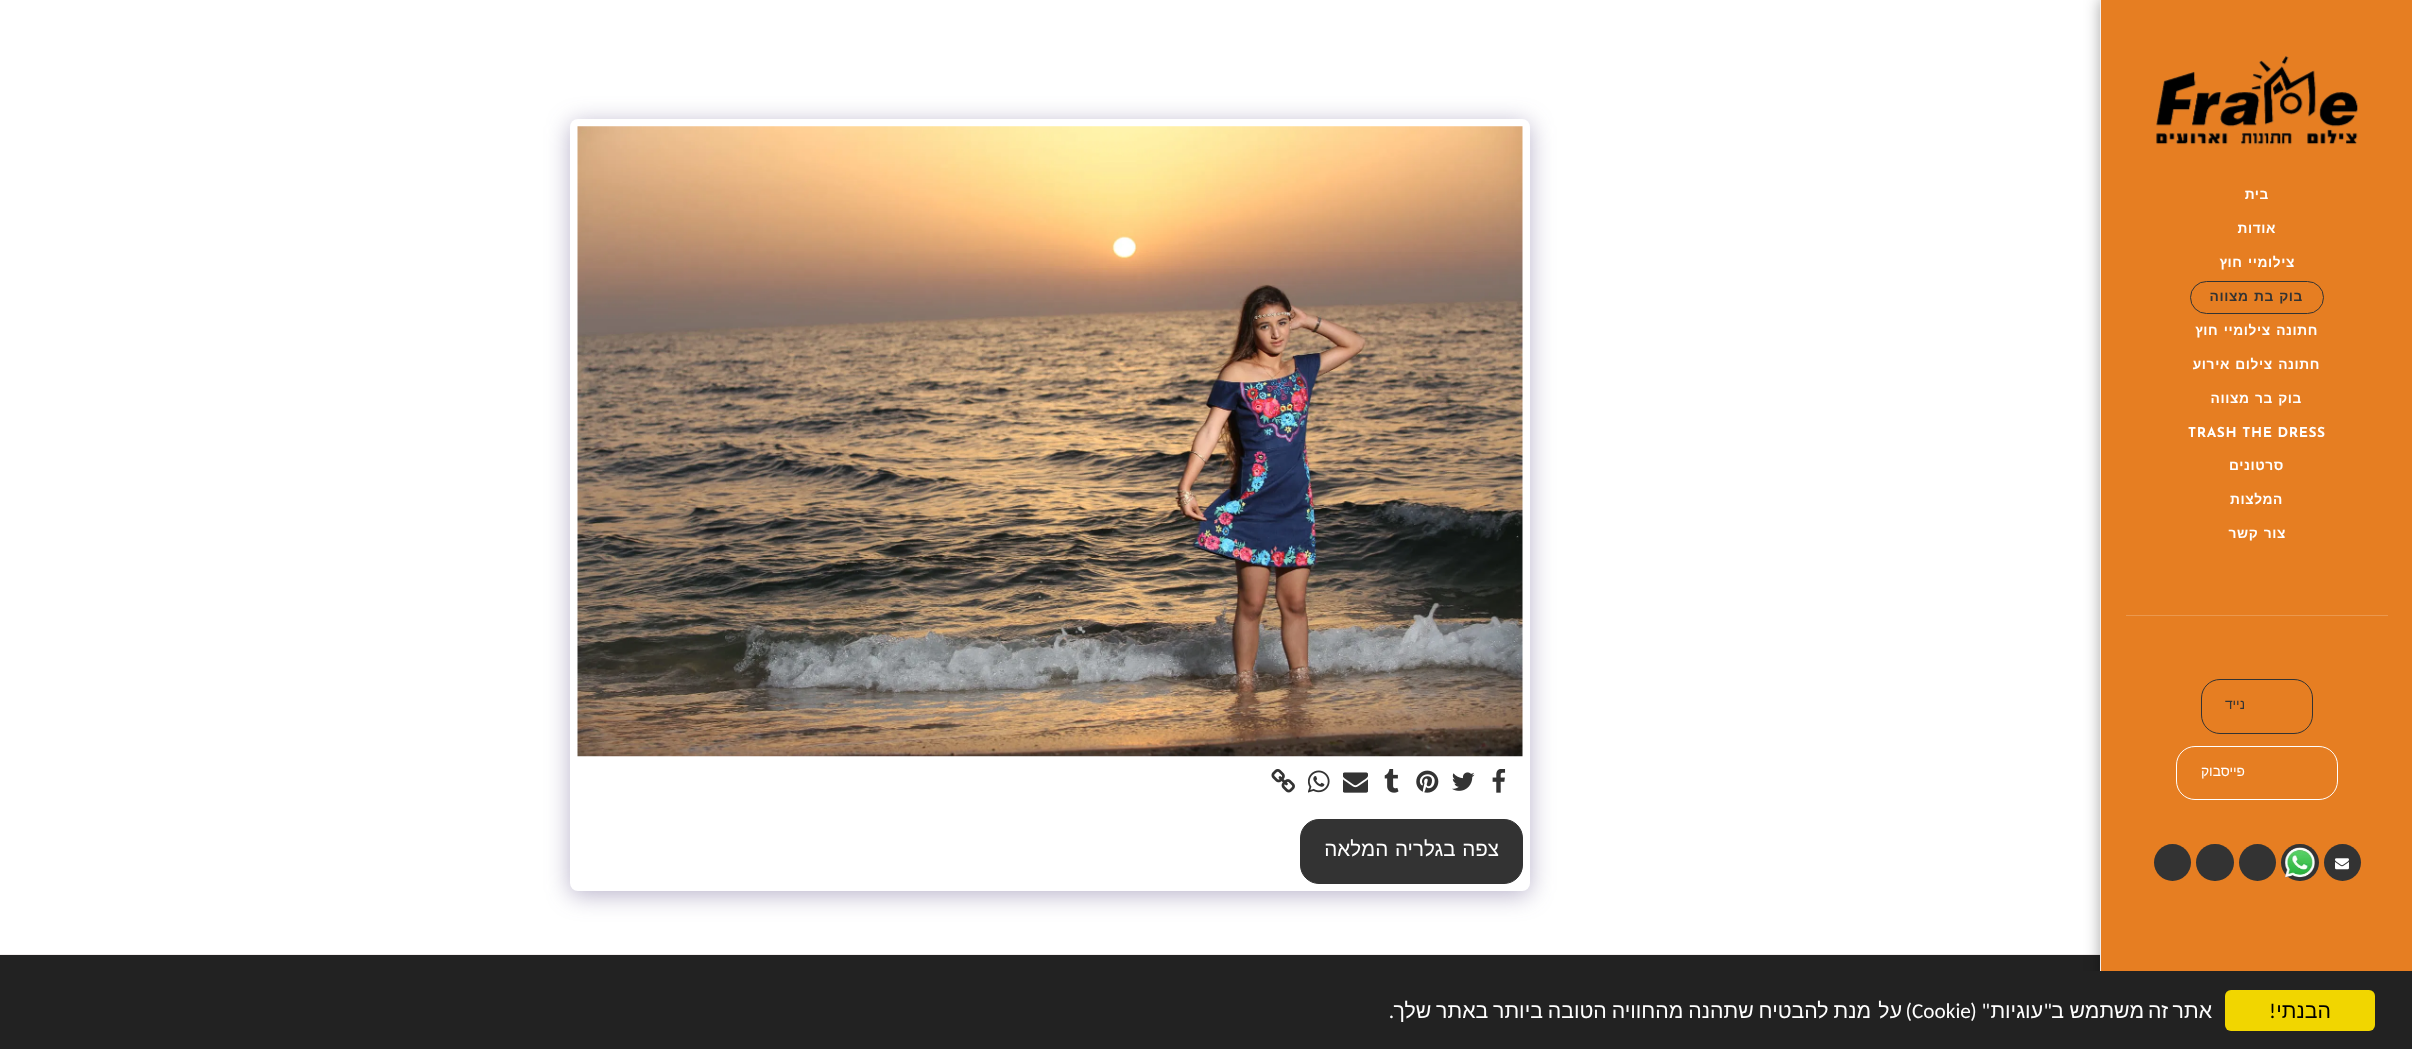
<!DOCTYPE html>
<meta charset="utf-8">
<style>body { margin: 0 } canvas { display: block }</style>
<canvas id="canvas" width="2412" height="1049"></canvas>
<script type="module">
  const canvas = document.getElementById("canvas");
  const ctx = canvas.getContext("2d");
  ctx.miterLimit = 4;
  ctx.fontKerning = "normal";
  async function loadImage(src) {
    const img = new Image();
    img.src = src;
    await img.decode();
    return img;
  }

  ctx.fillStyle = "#ffffff";
  ctx.fillRect(0, 0, 2412, 1049);
  ctx.fillStyle = "#222222";
  ctx.fillRect(0, 955, 2100, 16);
  ctx.fillStyle = "#f3eeee";
  ctx.fillRect(0, 954, 2100, 1);
  ctx.fillStyle = "rgba(0, 0, 0, 0.35)";
  ctx.filter = "blur(7.5px)";
  ctx.beginPath();
  ctx.rect(2100, -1, 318, 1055);
  ctx.fill();
  ctx.filter = "none";
  ctx.fillStyle = "#e67e22";
  ctx.fillRect(2101, 0, 311, 971);
  ctx.fillStyle = "#f3eeee";
  ctx.fillRect(2100, 0, 1, 971);
  ctx.drawImage(await loadImage("img1.png"), 2156, 56, 202, 89);
  ctx.letterSpacing = "0.6px";
  ctx.direction = "rtl";
  ctx.font = "bold 13.75px Liberation Sans";
  ctx.fillStyle = "#ffffff";
  ctx.fillText("בית", 2269, 199);
  ctx.fillText("אודות", 2276, 233);
  ctx.wordSpacing = "1px";
  ctx.fillText("צילומיי חוץ", 2295, 267);
  ctx.beginPath();
  ctx.roundRect(2190.5, 281.5, 133, 32, 16);
  ctx.strokeStyle = "#333333";
  ctx.stroke();
  ctx.fillStyle = "#333333";
  ctx.fillText("בוק בת מצווה", 2303, 301);
  ctx.fillStyle = "#ffffff";
  ctx.fillText("חתונה צילומיי חוץ", 2318, 335);
  ctx.fillText("חתונה צילום אירוע", 2320, 369);
  ctx.fillText("בוק בר מצווה", 2302, 403);
  ctx.wordSpacing = "0px";
  ctx.direction = "ltr";
  ctx.font = "bold 13.75px Josefin Sans";
  ctx.fillText("TRASH THE DRESS", 2188, 437);
  ctx.direction = "rtl";
  ctx.font = "bold 13.75px Liberation Sans";
  ctx.fillText("סרטונים", 2284, 470);
  ctx.fillText("המלצות", 2283, 504);
  ctx.wordSpacing = "1px";
  ctx.fillText("צור קשר", 2286, 538);
  ctx.fillStyle = "#eb984e";
  ctx.fillRect(2126, 615, 262, 1);
  ctx.beginPath();
  ctx.roundRect(2201.5, 679.5, 111, 54, 18.5);
  ctx.stroke();
  ctx.letterSpacing = "0px";
  ctx.wordSpacing = "0px";
  ctx.font = "13.75px Liberation Sans";
  ctx.fillStyle = "#333333";
  ctx.fillText("נייד", 2245, 709);
  ctx.beginPath();
  ctx.roundRect(2176.5, 746.5, 161, 53, 18.5);
  ctx.strokeStyle = "#ffffff";
  ctx.stroke();
  ctx.fillStyle = "#ffffff";
  ctx.fillText("פייסבוק", 2245, 776);
  ctx.fillStyle = "#333333";
  ctx.beginPath();
  ctx.arc(2342.5, 862.5, 18.5, 0, Math.PI * 2);
  ctx.fill();
  ctx.drawImage(await loadImage("img2.png"), 2335, 858, 14, 12);
  ctx.beginPath();
  ctx.roundRect(2281, 844, 38, 37, 18.5);
  ctx.fill();
  ctx.drawImage(await loadImage("img3.png"), 2285, 847, 30, 31);
  ctx.beginPath();
  ctx.arc(2257.5, 862.5, 18.5, 0, Math.PI * 2);
  ctx.fill();
  ctx.beginPath();
  ctx.roundRect(2196, 844, 38, 37, 18.5);
  ctx.fill();
  ctx.beginPath();
  ctx.arc(2172.5, 862.5, 18.5, 0, Math.PI * 2);
  ctx.fill();
  ctx.fillStyle = "rgba(77, 63, 122, 0.4)";
  ctx.filter = "blur(12.5px)";
  ctx.beginPath();
  ctx.roundRect(570, 123, 960, 772, 8);
  ctx.fill();
  ctx.filter = "none";
  ctx.fillStyle = "#ffffff";
  ctx.beginPath();
  ctx.roundRect(570, 119, 960, 772, 8);
  ctx.fill();
  ctx.drawImage(await loadImage("img4.png"), 577, 126, 946, 631);
  ctx.drawImage(await loadImage("img5.png"), 1492, 769, 14, 24);
  ctx.drawImage(await loadImage("img6.png"), 1452, 772, 23, 19);
  ctx.drawImage(await loadImage("img7.png"), 1416, 770, 23, 23);
  ctx.drawImage(await loadImage("img8.png"), 1384, 769, 15, 24);
  ctx.drawImage(await loadImage("img9.png"), 1343, 772, 25, 21);
  ctx.drawImage(await loadImage("img10.png"), 1308, 770, 22, 23);
  ctx.drawImage(await loadImage("img11.png"), 1271, 769, 24, 24);
  ctx.fillStyle = "#333333";
  ctx.beginPath();
  ctx.roundRect(1300.5, 819.5, 222, 64, 18.5);
  ctx.fill();
  ctx.strokeStyle = "#333333";
  ctx.stroke();
  ctx.wordSpacing = "1px";
  ctx.font = "20.6px Liberation Sans";
  ctx.fillStyle = "#ffffff";
  ctx.fillText("צפה בגלריה המלאה", 1499, 856);
  ctx.fillStyle = "#222222";
  ctx.fillRect(0, 971, 2412, 78);
  ctx.fillStyle = "#f1d600";
  ctx.beginPath();
  ctx.roundRect(2225, 990, 150, 41, 6);
  ctx.fill();
  ctx.wordSpacing = "0px";
  ctx.font = "21.25px Liberation Sans";
  ctx.fillStyle = "#000000";
  ctx.fillText("הבנתי", 2331, 1018);
  ctx.font = "21.25px Carlito";
  ctx.fillText("!", 2276, 1018);
  ctx.font = "21.25px Liberation Sans";
  ctx.fillStyle = "#ffffff";
  ctx.fillText("אתר", 2212, 1018);
  ctx.fillText("זה", 2168, 1018);
  ctx.fillText("משתמש", 2144, 1018);
  ctx.fillText("ב", 2064, 1018);
  ctx.font = "21.25px Carlito";
  ctx.fillText("\"", 2052, 1018);
  ctx.font = "21.25px Liberation Sans";
  ctx.fillText("עוגיות", 2043, 1018);
  ctx.font = "21.25px Carlito";
  ctx.fillText("\" (", 1990, 1018);
  ctx.direction = "ltr";
  ctx.fillText("Cookie", 1912, 1018);
  ctx.direction = "rtl";
  ctx.fillText(")", 1912, 1018);
  ctx.font = "21.25px Liberation Sans";
  ctx.fillText("על", 1902, 1018);
  ctx.wordSpacing = "-1px";
  ctx.fillText("מנת להבטיח שתהנה מהחוויה הטובה ביותר באתר שלך", 1871, 1018);
  ctx.wordSpacing = "0px";
  ctx.font = "21.25px Carlito";
  ctx.fillText(".", 1394, 1018);
</script>
